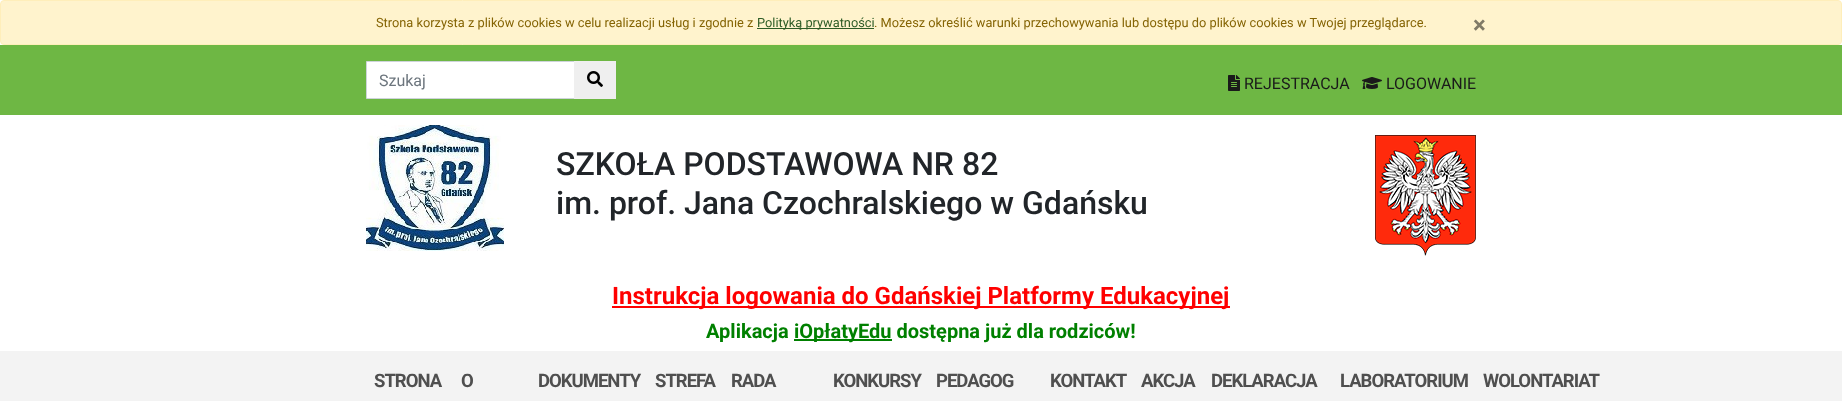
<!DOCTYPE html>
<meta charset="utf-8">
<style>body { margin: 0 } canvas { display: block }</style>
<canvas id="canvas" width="1842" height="401"></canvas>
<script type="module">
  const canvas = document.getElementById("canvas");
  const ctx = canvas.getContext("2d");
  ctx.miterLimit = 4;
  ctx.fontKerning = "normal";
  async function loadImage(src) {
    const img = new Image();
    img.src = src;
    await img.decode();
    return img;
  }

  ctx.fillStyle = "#ffffff";
  ctx.fillRect(0, 0, 1842, 401);
  ctx.fillStyle = "#fff3cd";
  ctx.beginPath();
  ctx.roundRect(0.5, 0.5, 1841, 44, 3.5);
  ctx.fill();
  ctx.strokeStyle = "#ffeeba";
  ctx.stroke();
  ctx.font = "12.8px Roboto";
  ctx.fillStyle = "#856404";
  ctx.fillText("Strona korzysta z plików cookies w celu realizacji usług i zgodnie z", 376, 27);
  ctx.fillStyle = "#2e5c26";
  ctx.fillRect(757, 28, 117, 1);
  ctx.fillText("Polityką prywatności", 757, 27);
  ctx.fillStyle = "#856404";
  ctx.fillText(". Możesz określić warunki przechowywania lub dostępu do plików cookies w Twojej przeglądarce.", 874, 27);
  ctx.font = "bold 24px Roboto";
  ctx.fillStyle = "#807a67";
  ctx.fillText("×", 1473, 33);
  ctx.fillStyle = "#6eb744";
  ctx.fillRect(0, 45, 1842, 70);
  ctx.fillStyle = "#ffffff";
  ctx.beginPath();
  ctx.rect(366.5, 61.5, 208, 37);
  ctx.fill();
  ctx.strokeStyle = "#ced4da";
  ctx.stroke();
  ctx.font = "16px Roboto";
  ctx.fillStyle = "#6c757d";
  ctx.fillText("Szukaj", 379, 86);
  ctx.fillStyle = "#efefef";
  ctx.fillRect(574, 61, 42, 38);
  ctx.drawImage(await loadImage("img1.png"), 587, 71, 16, 16);
  ctx.drawImage(await loadImage("img2.png"), 1228, 75, 12, 16);
  ctx.fillStyle = "#1a1a1a";
  ctx.fillText("REJESTRACJA", 1244, 89);
  ctx.drawImage(await loadImage("img3.png"), 1362, 77, 20, 12);
  ctx.fillText("LOGOWANIE", 1386, 89);
  ctx.drawImage(await loadImage("img4.png"), 366, 125, 138, 126);
  ctx.font = "500 32px Roboto";
  ctx.fillStyle = "#212529";
  ctx.fillText("SZKOŁA PODSTAWOWA NR 82", 556, 175);
  ctx.fillText("im. prof. Jana Czochralskiego w Gdańsku", 556, 214);
  ctx.drawImage(await loadImage("img5.png"), 1375, 135, 101, 121);
  ctx.fillStyle = "#ff0000";
  ctx.fillRect(612, 306, 618, 2);
  ctx.font = "bold 24px Roboto";
  ctx.fillText("Instrukcja logowania do Gdańskiej Platformy Edukacyjnej", 612, 304);
  ctx.font = "bold 20px Roboto";
  ctx.fillStyle = "#008000";
  ctx.fillText("Aplikacja", 706, 338);
  ctx.fillRect(794, 339, 98, 2);
  ctx.fillText("iOpłatyEdu dostępna już dla rodziców!", 794, 338);
  ctx.fillStyle = "#f3f3f3";
  ctx.fillRect(0, 351, 1842, 50);
  ctx.letterSpacing = "-1px";
  ctx.font = "bold 18.5px Roboto";
  ctx.fillStyle = "#4f4f4f";
  ctx.fillText("STRONA", 374, 387);
  ctx.fillText("O", 461, 387);
  ctx.fillText("DOKUMENTY", 538, 387);
  ctx.fillText("STREFA", 655, 387);
  ctx.fillText("RADA", 731, 387);
  ctx.fillText("KONKURSY", 833, 387);
  ctx.fillText("PEDAGOG", 936, 387);
  ctx.fillText("KONTAKT", 1050, 387);
  ctx.fillText("AKCJA", 1141, 387);
  ctx.fillText("DEKLARACJA", 1211, 387);
  ctx.fillText("LABORATORIUM", 1340, 387);
  ctx.fillText("WOLONTARIAT", 1483, 387);
</script>
